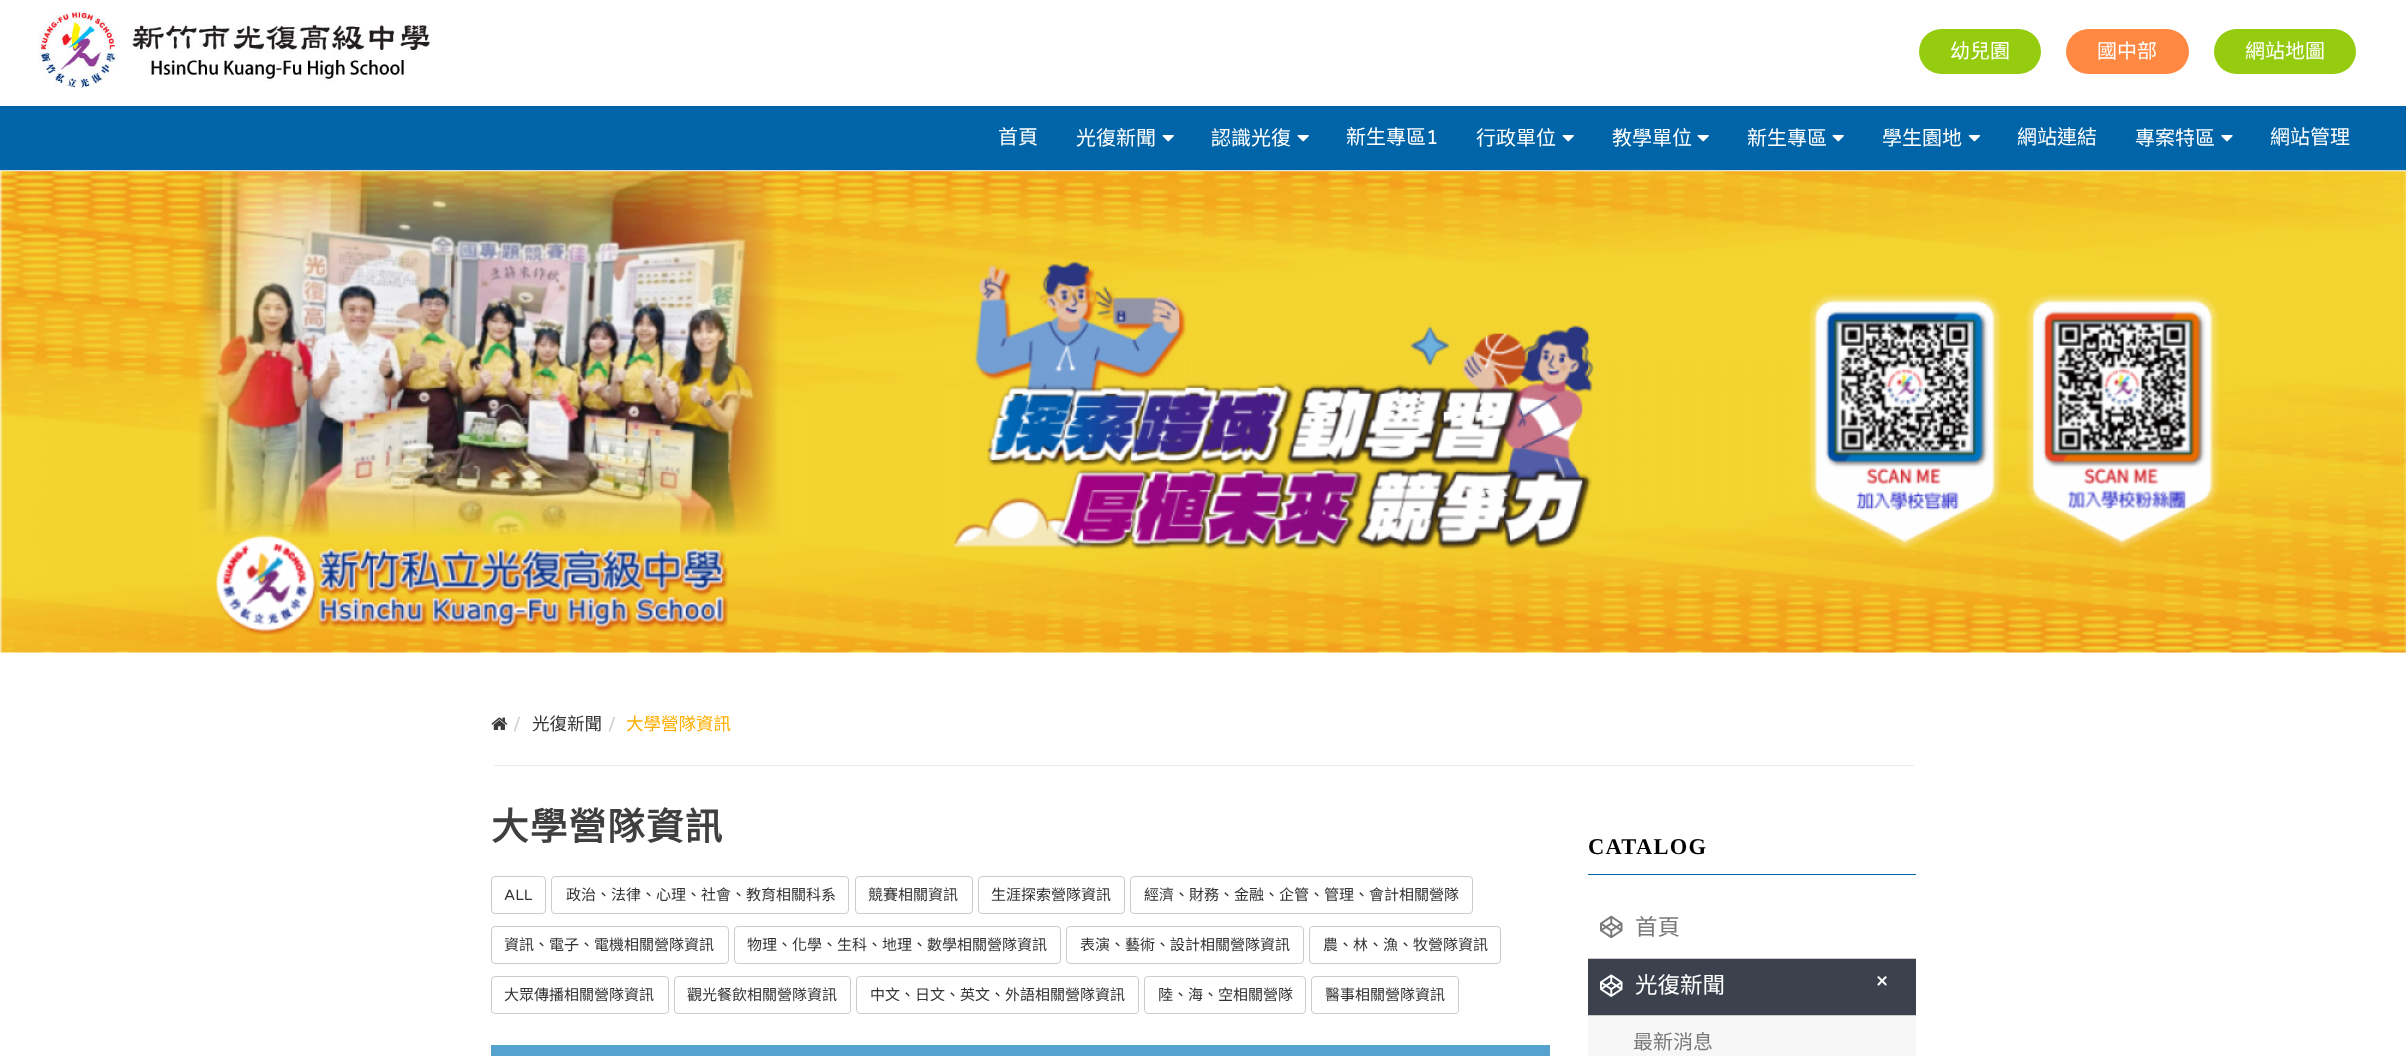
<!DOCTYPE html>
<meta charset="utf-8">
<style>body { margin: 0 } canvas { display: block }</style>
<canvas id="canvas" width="2406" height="1056"></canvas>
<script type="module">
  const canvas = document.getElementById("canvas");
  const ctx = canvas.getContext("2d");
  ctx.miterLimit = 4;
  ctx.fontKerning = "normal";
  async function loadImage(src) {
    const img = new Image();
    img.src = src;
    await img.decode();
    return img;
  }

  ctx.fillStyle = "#ffffff";
  ctx.fillRect(0, 0, 2406, 1056);
  ctx.fillStyle = "#e0e0e0";
  ctx.fillRect(0, 170, 2406, 1);
  ctx.drawImage(await loadImage("img1.png"), 38, 12, 392, 76);
  ctx.fillStyle = "#95cc10";
  ctx.beginPath();
  ctx.roundRect(1919, 29, 122, 45, 22.5);
  ctx.fill();
  ctx.font = "20px Noto Sans CJK TC";
  ctx.fillStyle = "#ffffff";
  ctx.fillText("幼兒園", 1950, 58);
  ctx.fillStyle = "#ff8842";
  ctx.beginPath();
  ctx.roundRect(2066, 29, 123, 45, 22.5);
  ctx.fill();
  ctx.fillStyle = "#ffffff";
  ctx.fillText("國中部", 2097, 58);
  ctx.fillStyle = "#95cc10";
  ctx.beginPath();
  ctx.roundRect(2214, 29, 142, 45, 22.5);
  ctx.fill();
  ctx.fillStyle = "#ffffff";
  ctx.fillText("網站地圖", 2245, 58);
  ctx.fillStyle = "#0064a9";
  ctx.fillRect(0, 106, 2406, 64);
  ctx.fillStyle = "#ffffff";
  ctx.fillText("首頁", 998, 144);
  ctx.fillText("光復新聞", 1076, 145);
  ctx.drawImage(await loadImage("img2.png"), 1162, 135, 12, 7);
  ctx.fillText("認識光復", 1211, 145);
  ctx.drawImage(await loadImage("img2.png"), 1297, 135, 12, 7);
  ctx.fillText("新生專區", 1346, 144);
  ctx.font = "20px Varela Round";
  ctx.fillText("1", 1426, 144);
  ctx.font = "20px Noto Sans CJK TC";
  ctx.fillText("行政單位", 1476, 145);
  ctx.drawImage(await loadImage("img2.png"), 1562, 135, 12, 7);
  ctx.fillText("教學單位", 1612, 145);
  ctx.drawImage(await loadImage("img2.png"), 1697, 135, 12, 7);
  ctx.fillText("新生專區", 1747, 145);
  ctx.drawImage(await loadImage("img2.png"), 1832, 135, 12, 7);
  ctx.fillText("學生園地", 1882, 145);
  ctx.drawImage(await loadImage("img3.png"), 1968, 135, 13, 7);
  ctx.fillText("網站連結", 2017, 144);
  ctx.fillText("專案特區", 2135, 145);
  ctx.drawImage(await loadImage("img4.png"), 2221, 135, 12, 7);
  ctx.fillText("網站管理", 2270, 144);
  ctx.drawImage(await loadImage("img5.png"), 0, 171, 2406, 482);
  ctx.fillStyle = "#ebebeb";
  ctx.fillRect(494, 765, 1420, 1);
  ctx.drawImage(await loadImage("img6.png"), 491, 717, 17, 13);
  ctx.font = "17.5px Varela Round";
  ctx.fillStyle = "#cccccc";
  ctx.fillText("/", 513, 730);
  ctx.font = "17.5px Noto Sans CJK TC";
  ctx.fillStyle = "#333333";
  ctx.fillText("光復新聞", 532, 730);
  ctx.font = "17.5px Varela Round";
  ctx.fillStyle = "#cccccc";
  ctx.fillText("/", 608, 730);
  ctx.font = "17.5px Noto Sans CJK TC";
  ctx.fillStyle = "#ffae00";
  ctx.fillText("大學營隊資訊", 626, 730);
  ctx.letterSpacing = "1.25px";
  ctx.font = "bold 37.5px Noto Sans CJK TC";
  ctx.fillStyle = "#3f3f3f";
  ctx.fillText("大學營隊資訊", 491, 840);
  ctx.beginPath();
  ctx.roundRect(491.5, 876.5, 54, 37, 3.5);
  ctx.strokeStyle = "#cccccc";
  ctx.stroke();
  ctx.letterSpacing = "0px";
  ctx.font = "15px Varela Round";
  ctx.fillStyle = "#333333";
  ctx.fillText("ALL", 504, 900);
  ctx.beginPath();
  ctx.roundRect(551.5, 876.5, 297, 37, 3.5);
  ctx.stroke();
  ctx.font = "15px Noto Sans CJK TC";
  ctx.fillText("政治、法律、心理、社會、教育相關科系", 566, 900);
  ctx.beginPath();
  ctx.roundRect(855.5, 876.5, 117, 37, 3.5);
  ctx.stroke();
  ctx.fillText("競賽相關資訊", 868, 900);
  ctx.beginPath();
  ctx.roundRect(978.5, 876.5, 146, 37, 3.5);
  ctx.stroke();
  ctx.fillText("生涯探索營隊資訊", 991, 900);
  ctx.beginPath();
  ctx.roundRect(1130.5, 876.5, 342, 37, 3.5);
  ctx.stroke();
  ctx.fillText("經濟、財務、金融、企管、管理、會計相關營隊", 1144, 900);
  ctx.beginPath();
  ctx.roundRect(491.5, 926.5, 237, 37, 3.5);
  ctx.stroke();
  ctx.fillText("資訊、電子、電機相關營隊資訊", 504, 950);
  ctx.beginPath();
  ctx.roundRect(734.5, 926.5, 326, 37, 3.5);
  ctx.stroke();
  ctx.fillText("物理、化學、生科、地理、數學相關營隊資訊", 747, 950);
  ctx.beginPath();
  ctx.roundRect(1066.5, 926.5, 237, 37, 3.5);
  ctx.stroke();
  ctx.fillText("表演、藝術、設計相關營隊資訊", 1080, 950);
  ctx.beginPath();
  ctx.roundRect(1309.5, 926.5, 191, 37, 3.5);
  ctx.stroke();
  ctx.fillText("農、林、漁、牧營隊資訊", 1323, 950);
  ctx.beginPath();
  ctx.roundRect(491.5, 976.5, 177, 37, 3.5);
  ctx.stroke();
  ctx.fillText("大眾傳播相關營隊資訊", 504, 1000);
  ctx.beginPath();
  ctx.roundRect(674.5, 976.5, 176, 37, 3.5);
  ctx.stroke();
  ctx.fillText("觀光餐飲相關營隊資訊", 687, 1000);
  ctx.beginPath();
  ctx.roundRect(856.5, 976.5, 282, 37, 3.5);
  ctx.stroke();
  ctx.fillText("中文、日文、英文、外語相關營隊資訊", 870, 1000);
  ctx.beginPath();
  ctx.roundRect(1144.5, 976.5, 161, 37, 3.5);
  ctx.stroke();
  ctx.fillText("陸、海、空相關營隊", 1158, 1000);
  ctx.beginPath();
  ctx.roundRect(1311.5, 976.5, 147, 37, 3.5);
  ctx.stroke();
  ctx.fillText("醫事相關營隊資訊", 1325, 1000);
  ctx.fillStyle = "#56a2cf";
  ctx.fillRect(491, 1045, 1059, 11);
  ctx.fillStyle = "#0064a9";
  ctx.fillRect(1588, 874, 328, 1);
  ctx.letterSpacing = "1.25px";
  ctx.font = "bold 22.5px Liberation Serif";
  ctx.fillStyle = "#000000";
  ctx.fillText("CATALOG", 1588, 854);
  ctx.fillStyle = "#cccccc";
  ctx.fillRect(1588, 958, 328, 1);
  ctx.drawImage(await loadImage("img7.png"), 1600, 915, 23, 24);
  ctx.letterSpacing = "0px";
  ctx.font = "22.5px Noto Sans CJK TC";
  ctx.fillStyle = "#797979";
  ctx.fillText("首頁", 1635, 935);
  ctx.fillStyle = "#3b424d";
  ctx.fillRect(1588, 959, 328, 56);
  ctx.fillStyle = "#cccccc";
  ctx.fillRect(1588, 1015, 328, 1);
  ctx.drawImage(await loadImage("img8.png"), 1600, 974, 23, 23);
  ctx.fillStyle = "#ffffff";
  ctx.fillText("光復新聞", 1635, 993);
  ctx.font = "25px Varela Round";
  ctx.save();
  ctx.translate(1871, 982);
  ctx.rotate(45 * Math.PI / 180);
  ctx.fillText("+", 0, 0);
  ctx.restore();
  ctx.fillStyle = "#f7f7f7";
  ctx.fillRect(1588, 1016, 328, 40);
  ctx.font = "20px Noto Sans CJK TC";
  ctx.fillStyle = "#797979";
  ctx.fillText("最新消息", 1633, 1049);
</script>
